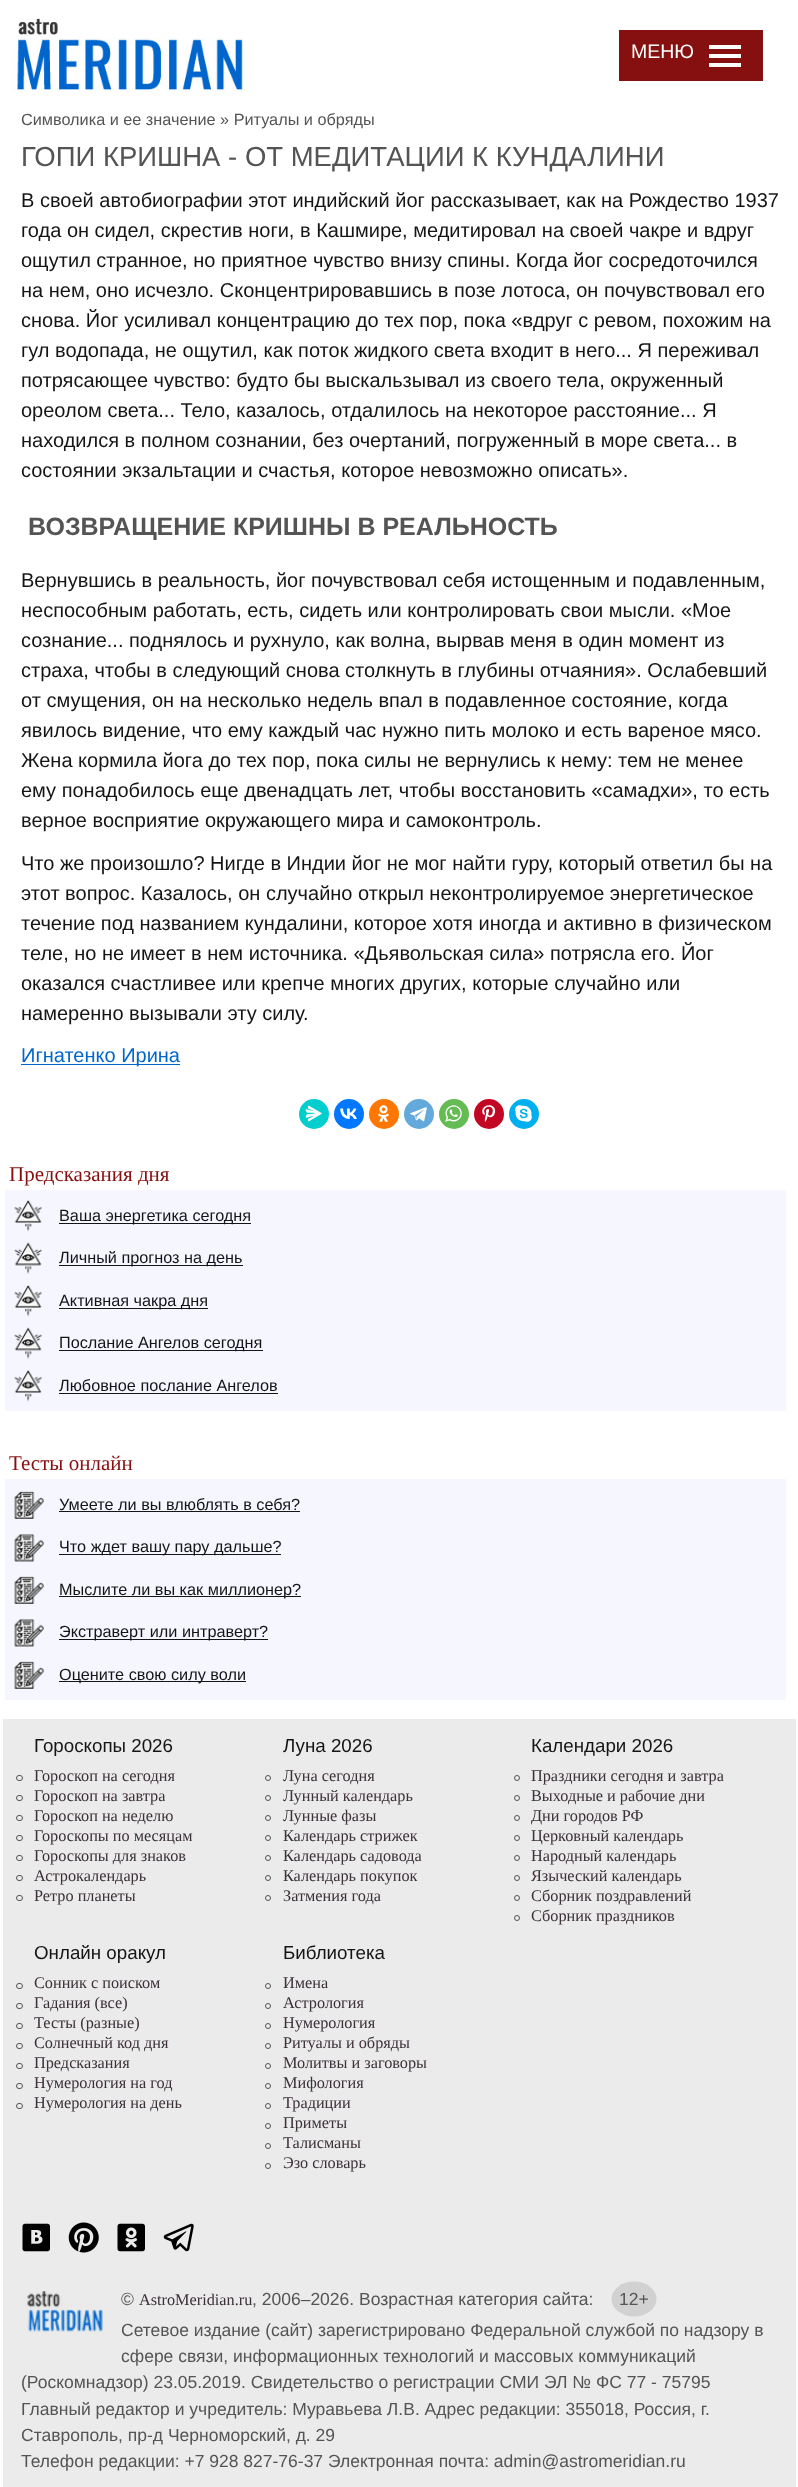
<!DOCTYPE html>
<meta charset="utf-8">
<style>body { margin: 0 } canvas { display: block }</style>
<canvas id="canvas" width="798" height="2487"></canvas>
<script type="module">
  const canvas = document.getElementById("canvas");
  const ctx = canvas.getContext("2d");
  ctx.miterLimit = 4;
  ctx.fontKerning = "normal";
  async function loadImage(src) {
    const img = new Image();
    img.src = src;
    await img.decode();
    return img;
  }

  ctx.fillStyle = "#ffffff";
  ctx.fillRect(0, 0, 798, 2487);
  ctx.drawImage(await loadImage("img1.png"), 12, 18, 233, 74);
  ctx.fillStyle = "#860f0f";
  ctx.fillRect(619, 30, 144, 51);
  ctx.font = "19.5px Liberation Sans";
  ctx.fillStyle = "#ffffff";
  ctx.fillText("МЕНЮ", 631, 58);
  ctx.fillRect(709, 45, 32, 4);
  ctx.fillRect(709, 54, 32, 4);
  ctx.fillRect(709, 63, 32, 4);
  ctx.font = "16.25px Liberation Sans";
  ctx.fillStyle = "#545454";
  ctx.fillText("Символика и ее значение » Ритуалы и обряды", 21, 125);
  ctx.font = "27.5px Liberation Sans";
  ctx.fillText("ГОПИ КРИШНА - ОТ МЕДИТАЦИИ К КУНДАЛИНИ", 21, 166);
  ctx.font = "20px Liberation Sans";
  ctx.fillStyle = "#151515";
  ctx.fillText("В своей автобиографии этот индийский йог рассказывает, как на Рождество 1937", 21, 207);
  ctx.fillText("года он сидел, скрестив ноги, в Кашмире, медитировал на своей чакре и вдруг", 21, 237);
  ctx.fillText("ощутил странное, но приятное чувство внизу спины. Когда йог сосредоточился", 21, 267);
  ctx.fillText("на нем, оно исчезло. Сконцентрировавшись в позе лотоса, он почувствовал его", 21, 297);
  ctx.fillText("снова. Йог усиливал концентрацию до тех пор, пока «вдруг с ревом, похожим на", 21, 327);
  ctx.fillText("гул водопада, не ощутил, как поток жидкого света входит в него... Я переживал", 21, 357);
  ctx.fillText("потрясающее чувство: будто бы выскальзывал из своего тела, окруженный", 21, 387);
  ctx.fillText("ореолом света... Тело, казалось, отдалилось на некоторое расстояние... Я", 21, 417);
  ctx.fillText("находился в полном сознании, без очертаний, погруженный в море света... в", 21, 447);
  ctx.fillText("состоянии экзальтации и счастья, которое невозможно описать».", 21, 477);
  ctx.font = "bold 25px Liberation Sans";
  ctx.fillStyle = "#545454";
  ctx.fillText("ВОЗВРАЩЕНИЕ КРИШНЫ В РЕАЛЬНОСТЬ", 28, 535);
  ctx.font = "20px Liberation Sans";
  ctx.fillStyle = "#151515";
  ctx.fillText("Вернувшись в реальность, йог почувствовал себя истощенным и подавленным,", 21, 587);
  ctx.fillText("неспособным работать, есть, сидеть или контролировать свои мысли. «Мое", 21, 617);
  ctx.fillText("сознание... поднялось и рухнуло, как волна, вырвав меня в один момент из", 21, 647);
  ctx.fillText("страха, чтобы в следующий снова столкнуть в глубины отчаяния». Ослабевший", 21, 677);
  ctx.fillText("от смущения, он на несколько недель впал в подавленное состояние, когда", 21, 707);
  ctx.fillText("явилось видение, что ему каждый час нужно пить молоко и есть вареное мясо.", 21, 737);
  ctx.fillText("Жена кормила йога до тех пор, пока силы не вернулись к нему: тем не менее", 21, 767);
  ctx.fillText("ему понадобилось еще двенадцать лет, чтобы восстановить «самадхи», то есть", 21, 797);
  ctx.fillText("верное восприятие окружающего мира и самоконтроль.", 21, 827);
  ctx.fillText("Что же произошло? Нигде в Индии йог не мог найти гуру, который ответил бы на", 21, 870);
  ctx.fillText("этот вопрос. Казалось, он случайно открыл неконтролируемое энергетическое", 21, 900);
  ctx.fillText("течение под названием кундалини, которое хотя иногда и активно в физическом", 21, 930);
  ctx.fillText("теле, но не имеет в нем источника. «Дьявольская сила» потрясла его. Йог", 21, 960);
  ctx.fillText("оказался счастливее или крепче многих других, которые случайно или", 21, 990);
  ctx.fillText("намеренно вызывали эту силу.", 21, 1020);
  ctx.fillStyle = "#0066cc";
  ctx.fillRect(21, 1064, 159, 1);
  ctx.fillText("Игнатенко Ирина", 21, 1062);
  ctx.fillStyle = "#03cece";
  ctx.beginPath();
  ctx.arc(314, 1114, 15, 0, Math.PI * 2);
  ctx.fill();
  ctx.drawImage(await loadImage("img2.png"), 305, 1105, 17, 17);
  ctx.fillStyle = "#0077ff";
  ctx.beginPath();
  ctx.arc(349, 1114, 15, 0, Math.PI * 2);
  ctx.fill();
  ctx.drawImage(await loadImage("img3.png"), 340, 1108, 17, 11);
  ctx.fillStyle = "#ff7700";
  ctx.beginPath();
  ctx.arc(384, 1114, 15, 0, Math.PI * 2);
  ctx.fill();
  ctx.drawImage(await loadImage("img4.png"), 378, 1105, 12, 17);
  ctx.fillStyle = "#64a9dc";
  ctx.beginPath();
  ctx.arc(419, 1114, 15, 0, Math.PI * 2);
  ctx.fill();
  ctx.drawImage(await loadImage("img5.png"), 410, 1107, 17, 15);
  ctx.fillStyle = "#65bc54";
  ctx.beginPath();
  ctx.arc(454, 1114, 15, 0, Math.PI * 2);
  ctx.fill();
  ctx.drawImage(await loadImage("img6.png"), 445, 1105, 17, 17);
  ctx.fillStyle = "#c20724";
  ctx.beginPath();
  ctx.arc(489, 1114, 15, 0, Math.PI * 2);
  ctx.fill();
  ctx.drawImage(await loadImage("img7.png"), 482, 1105, 14, 17);
  ctx.fillStyle = "#00aff0";
  ctx.beginPath();
  ctx.arc(524, 1114, 15, 0, Math.PI * 2);
  ctx.fill();
  ctx.drawImage(await loadImage("img8.png"), 515, 1105, 17, 17);
  ctx.font = "21px Liberation Serif";
  ctx.fillStyle = "#860f0f";
  ctx.fillText("Предсказания дня", 9, 1181);
  ctx.fillStyle = "#f5f6ff";
  ctx.fillRect(5, 1190, 781, 221);
  ctx.drawImage(await loadImage("img9.png"), 14, 1200, 28, 32);
  ctx.fillStyle = "#151515";
  ctx.fillRect(59, 1223, 192, 1);
  ctx.font = "16.25px Liberation Sans";
  ctx.fillText("Ваша энергетика сегодня", 59, 1221);
  ctx.drawImage(await loadImage("img10.png"), 14, 1242, 28, 32);
  ctx.fillRect(59, 1265, 184, 1);
  ctx.fillText("Личный прогноз на день", 59, 1263);
  ctx.drawImage(await loadImage("img9.png"), 14, 1285, 28, 32);
  ctx.fillRect(59, 1308, 149, 1);
  ctx.fillText("Активная чакра дня", 59, 1306);
  ctx.drawImage(await loadImage("img10.png"), 14, 1327, 28, 32);
  ctx.fillRect(59, 1350, 204, 1);
  ctx.fillText("Послание Ангелов сегодня", 59, 1348);
  ctx.drawImage(await loadImage("img9.png"), 14, 1370, 28, 32);
  ctx.fillText("Любовное послание Ангелов", 59, 1391);
  ctx.fillRect(59, 1393, 219, 1);
  ctx.font = "21px Liberation Serif";
  ctx.fillStyle = "#860f0f";
  ctx.fillText("Тесты онлайн", 9, 1470);
  ctx.fillStyle = "#f5f6ff";
  ctx.fillRect(5, 1479, 781, 221);
  ctx.drawImage(await loadImage("img11.png"), 14, 1491, 30, 28);
  ctx.font = "16.25px Liberation Sans";
  ctx.fillStyle = "#151515";
  ctx.fillText("Умеете ли вы влюблять в себя?", 59, 1510);
  ctx.fillRect(59, 1511, 241, 1);
  ctx.drawImage(await loadImage("img12.png"), 14, 1534, 30, 28);
  ctx.fillRect(59, 1554, 222, 1);
  ctx.fillText("Что ждет вашу пару дальше?", 59, 1552);
  ctx.drawImage(await loadImage("img11.png"), 14, 1576, 30, 28);
  ctx.fillRect(59, 1596, 242, 1);
  ctx.fillText("Мыслите ли вы как миллионер?", 59, 1595);
  ctx.drawImage(await loadImage("img12.png"), 14, 1619, 30, 28);
  ctx.fillRect(59, 1639, 209, 1);
  ctx.fillText("Экстраверт или интраверт?", 59, 1637);
  ctx.drawImage(await loadImage("img11.png"), 14, 1661, 30, 28);
  ctx.fillRect(59, 1681, 187, 1);
  ctx.fillText("Оцените свою силу воли", 59, 1680);
  ctx.fillStyle = "#ebebeb";
  ctx.fillRect(3, 1719, 793, 768);
  ctx.font = "18.75px Liberation Sans";
  ctx.fillStyle = "#151515";
  ctx.fillText("Гороскопы 2026", 34, 1752);
  ctx.beginPath();
  ctx.roundRect(16.5, 1775.5, 6, 5, 2.5);
  ctx.strokeStyle = "#545454";
  ctx.stroke();
  ctx.font = "16.25px Liberation Serif";
  ctx.fillStyle = "#3c3039";
  ctx.fillText("Гороскоп на сегодня", 34, 1781);
  ctx.beginPath();
  ctx.roundRect(16.5, 1795.5, 6, 5, 2.5);
  ctx.stroke();
  ctx.fillText("Гороскоп на завтра", 34, 1801);
  ctx.beginPath();
  ctx.roundRect(16.5, 1815.5, 6, 5, 2.5);
  ctx.stroke();
  ctx.fillText("Гороскоп на неделю", 34, 1821);
  ctx.beginPath();
  ctx.roundRect(16.5, 1835.5, 6, 5, 2.5);
  ctx.stroke();
  ctx.fillText("Гороскопы по месяцам", 34, 1841);
  ctx.beginPath();
  ctx.roundRect(16.5, 1855.5, 6, 5, 2.5);
  ctx.stroke();
  ctx.fillText("Гороскопы для знаков", 34, 1861);
  ctx.beginPath();
  ctx.roundRect(16.5, 1875.5, 6, 5, 2.5);
  ctx.stroke();
  ctx.fillText("Астрокалендарь", 34, 1881);
  ctx.beginPath();
  ctx.roundRect(16.5, 1895.5, 6, 5, 2.5);
  ctx.stroke();
  ctx.fillText("Ретро планеты", 34, 1901);
  ctx.font = "18.75px Liberation Sans";
  ctx.fillStyle = "#151515";
  ctx.fillText("Луна 2026", 283, 1752);
  ctx.beginPath();
  ctx.arc(268, 1778, 2.5, 0, Math.PI * 2);
  ctx.stroke();
  ctx.font = "16.25px Liberation Serif";
  ctx.fillStyle = "#3c3039";
  ctx.fillText("Луна сегодня", 283, 1781);
  ctx.beginPath();
  ctx.arc(268, 1798, 2.5, 0, Math.PI * 2);
  ctx.stroke();
  ctx.fillText("Лунный календарь", 283, 1801);
  ctx.beginPath();
  ctx.arc(268, 1818, 2.5, 0, Math.PI * 2);
  ctx.stroke();
  ctx.fillText("Лунные фазы", 283, 1821);
  ctx.beginPath();
  ctx.arc(268, 1838, 2.5, 0, Math.PI * 2);
  ctx.stroke();
  ctx.fillText("Календарь стрижек", 283, 1841);
  ctx.beginPath();
  ctx.arc(268, 1858, 2.5, 0, Math.PI * 2);
  ctx.stroke();
  ctx.fillText("Календарь садовода", 283, 1861);
  ctx.beginPath();
  ctx.arc(268, 1878, 2.5, 0, Math.PI * 2);
  ctx.stroke();
  ctx.fillText("Календарь покупок", 283, 1881);
  ctx.beginPath();
  ctx.arc(268, 1898, 2.5, 0, Math.PI * 2);
  ctx.stroke();
  ctx.fillText("Затмения года", 283, 1901);
  ctx.font = "18.75px Liberation Sans";
  ctx.fillStyle = "#151515";
  ctx.fillText("Календари 2026", 531, 1752);
  ctx.beginPath();
  ctx.arc(517, 1778, 2.5, 0, Math.PI * 2);
  ctx.stroke();
  ctx.font = "16.25px Liberation Serif";
  ctx.fillStyle = "#3c3039";
  ctx.fillText("Праздники сегодня и завтра", 531, 1781);
  ctx.beginPath();
  ctx.arc(517, 1798, 2.5, 0, Math.PI * 2);
  ctx.stroke();
  ctx.fillText("Выходные и рабочие дни", 531, 1801);
  ctx.beginPath();
  ctx.arc(517, 1818, 2.5, 0, Math.PI * 2);
  ctx.stroke();
  ctx.fillText("Дни городов РФ", 531, 1821);
  ctx.beginPath();
  ctx.arc(517, 1838, 2.5, 0, Math.PI * 2);
  ctx.stroke();
  ctx.fillText("Церковный календарь", 531, 1841);
  ctx.beginPath();
  ctx.arc(517, 1858, 2.5, 0, Math.PI * 2);
  ctx.stroke();
  ctx.fillText("Народный календарь", 531, 1861);
  ctx.beginPath();
  ctx.arc(517, 1878, 2.5, 0, Math.PI * 2);
  ctx.stroke();
  ctx.fillText("Языческий календарь", 531, 1881);
  ctx.beginPath();
  ctx.arc(517, 1898, 2.5, 0, Math.PI * 2);
  ctx.stroke();
  ctx.fillText("Сборник поздравлений", 531, 1901);
  ctx.beginPath();
  ctx.arc(517, 1918, 2.5, 0, Math.PI * 2);
  ctx.stroke();
  ctx.fillText("Сборник праздников", 531, 1921);
  ctx.font = "18.75px Liberation Sans";
  ctx.fillStyle = "#151515";
  ctx.fillText("Онлайн оракул", 34, 1959);
  ctx.beginPath();
  ctx.roundRect(16.5, 1983.5, 6, 5, 2.5);
  ctx.stroke();
  ctx.font = "16.25px Liberation Serif";
  ctx.fillStyle = "#3c3039";
  ctx.fillText("Cонник с поиском", 34, 1988);
  ctx.beginPath();
  ctx.roundRect(16.5, 2003.5, 6, 5, 2.5);
  ctx.stroke();
  ctx.fillText("Гадания (все)", 34, 2008);
  ctx.beginPath();
  ctx.roundRect(16.5, 2023.5, 6, 5, 2.5);
  ctx.stroke();
  ctx.fillText("Тесты (разные)", 34, 2028);
  ctx.beginPath();
  ctx.roundRect(16.5, 2043.5, 6, 5, 2.5);
  ctx.stroke();
  ctx.fillText("Солнечный код дня", 34, 2048);
  ctx.beginPath();
  ctx.roundRect(16.5, 2063.5, 6, 5, 2.5);
  ctx.stroke();
  ctx.fillText("Предсказания", 34, 2068);
  ctx.beginPath();
  ctx.roundRect(16.5, 2083.5, 6, 5, 2.5);
  ctx.stroke();
  ctx.fillText("Нумерология на год", 34, 2088);
  ctx.beginPath();
  ctx.roundRect(16.5, 2103.5, 6, 5, 2.5);
  ctx.stroke();
  ctx.fillText("Нумерология на день", 34, 2108);
  ctx.font = "18.75px Liberation Sans";
  ctx.fillStyle = "#151515";
  ctx.fillText("Библиотека", 283, 1959);
  ctx.beginPath();
  ctx.arc(268, 1986, 2.5, 0, Math.PI * 2);
  ctx.stroke();
  ctx.font = "16.25px Liberation Serif";
  ctx.fillStyle = "#3c3039";
  ctx.fillText("Имена", 283, 1988);
  ctx.beginPath();
  ctx.arc(268, 2006, 2.5, 0, Math.PI * 2);
  ctx.stroke();
  ctx.fillText("Астрология", 283, 2008);
  ctx.beginPath();
  ctx.arc(268, 2026, 2.5, 0, Math.PI * 2);
  ctx.stroke();
  ctx.fillText("Нумерология", 283, 2028);
  ctx.beginPath();
  ctx.arc(268, 2046, 2.5, 0, Math.PI * 2);
  ctx.stroke();
  ctx.fillText("Ритуалы и обряды", 283, 2048);
  ctx.beginPath();
  ctx.arc(268, 2066, 2.5, 0, Math.PI * 2);
  ctx.stroke();
  ctx.fillText("Молитвы и заговоры", 283, 2068);
  ctx.beginPath();
  ctx.arc(268, 2086, 2.5, 0, Math.PI * 2);
  ctx.stroke();
  ctx.fillText("Мифология", 283, 2088);
  ctx.beginPath();
  ctx.arc(268, 2106, 2.5, 0, Math.PI * 2);
  ctx.stroke();
  ctx.fillText("Традиции", 283, 2108);
  ctx.beginPath();
  ctx.arc(268, 2126, 2.5, 0, Math.PI * 2);
  ctx.stroke();
  ctx.fillText("Приметы", 283, 2128);
  ctx.beginPath();
  ctx.arc(268, 2146, 2.5, 0, Math.PI * 2);
  ctx.stroke();
  ctx.fillText("Талисманы", 283, 2148);
  ctx.beginPath();
  ctx.arc(268, 2166, 2.5, 0, Math.PI * 2);
  ctx.stroke();
  ctx.fillText("Эзо словарь", 283, 2168);
  ctx.drawImage(await loadImage("img13.png"), 22, 2223, 28, 29);
  ctx.drawImage(await loadImage("img14.png"), 68, 2222, 31, 31);
  ctx.drawImage(await loadImage("img15.png"), 117, 2223, 28, 29);
  ctx.drawImage(await loadImage("img16.png"), 163, 2223, 31, 29);
  ctx.drawImage(await loadImage("img17.png"), 27, 2291, 76, 47);
  ctx.font = "17.5px Liberation Sans";
  ctx.fillStyle = "#545454";
  ctx.fillText("©", 121, 2305);
  ctx.font = "16.25px Liberation Serif";
  ctx.fillStyle = "#3c3039";
  ctx.fillText("AstroMeridian.ru", 139, 2305);
  ctx.font = "17.5px Liberation Sans";
  ctx.fillStyle = "#545454";
  ctx.fillText(", 2006–2026. Возрастная категория сайта:", 252, 2305);
  ctx.fillStyle = "#d1d1d1";
  ctx.beginPath();
  ctx.ellipse(634, 2299, 22.5, 17.5, 0, 0, Math.PI * 2);
  ctx.fill();
  ctx.fillStyle = "#545454";
  ctx.fillText("12+", 619, 2305);
  ctx.fillText("Сетевое издание (сайт) зарегистрировано Федеральной службой по надзору в", 121, 2336);
  ctx.fillText("сфере связи, информационных технологий и массовых коммуникаций", 121, 2362);
  ctx.fillText("(Роскомнадзор) 23.05.2019. Свидетельство о регистрации СМИ ЭЛ № ФС 77 - 75795", 21, 2388);
  ctx.fillText("Главный редактор и учредитель: Муравьева Л.В. Адрес редакции: 355018, Россия, г.", 21, 2415);
  ctx.fillText("Ставрополь, пр-д Черноморский, д. 29", 21, 2441);
  ctx.fillText("Телефон редакции: +7 928 827-76-37 Электронная почта: admin@astromeridian.ru", 21, 2467);
</script>
